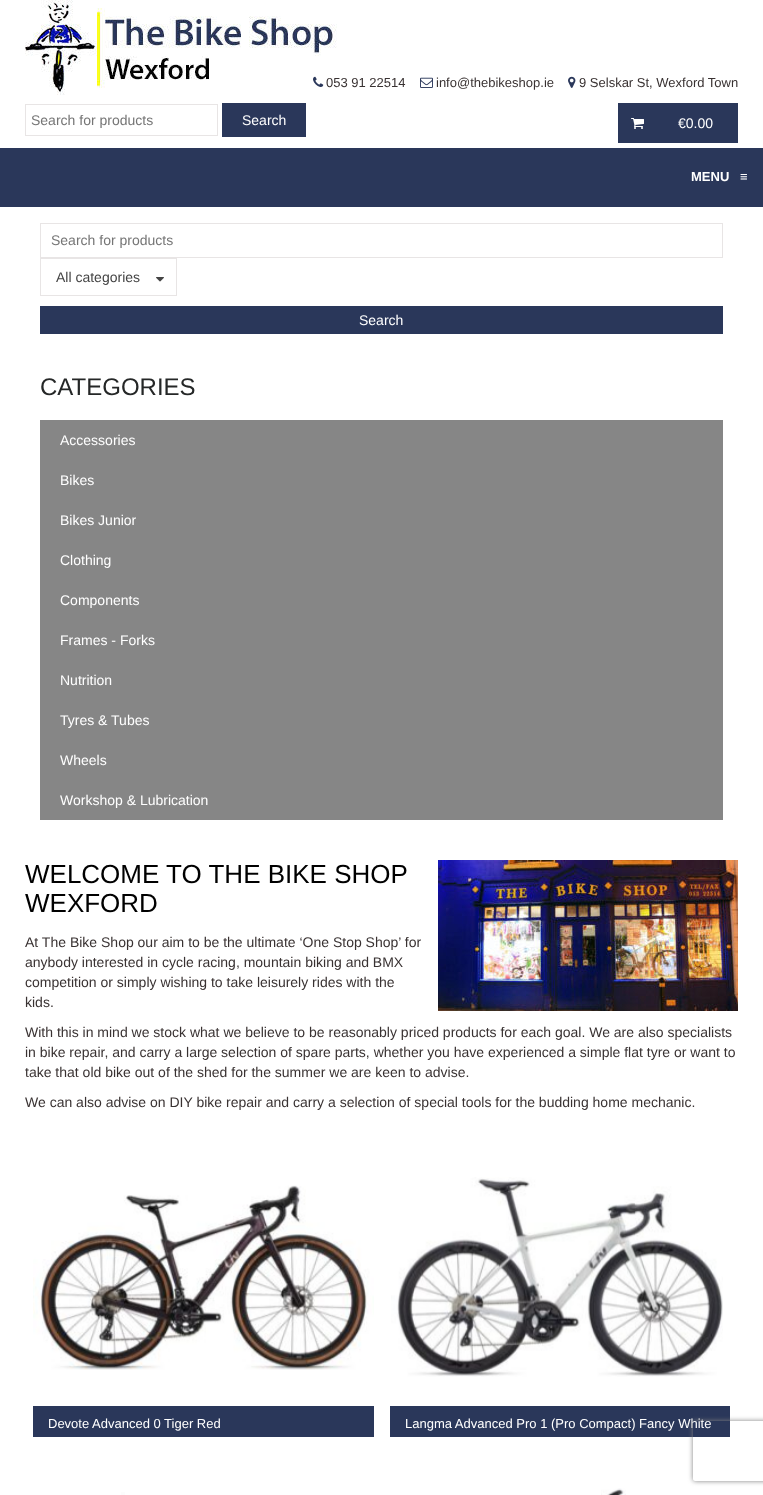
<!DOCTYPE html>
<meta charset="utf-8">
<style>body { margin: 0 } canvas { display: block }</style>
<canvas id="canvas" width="763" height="1495"></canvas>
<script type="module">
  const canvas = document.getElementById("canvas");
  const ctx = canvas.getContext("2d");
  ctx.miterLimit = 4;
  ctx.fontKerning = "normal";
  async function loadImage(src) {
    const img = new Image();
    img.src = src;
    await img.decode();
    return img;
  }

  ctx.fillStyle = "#ffffff";
  ctx.fillRect(0, 0, 763, 1495);
  ctx.drawImage(await loadImage("img1.png"), 25, 0, 312, 95);
  ctx.drawImage(await loadImage("img2.png"), 313, 76, 11, 11);
  ctx.font = "13px Liberation Sans";
  ctx.fillStyle = "#393232";
  ctx.fillText("053 91 22514", 326, 87);
  ctx.drawImage(await loadImage("img3.png"), 420, 77, 13, 11);
  ctx.fillText("info@thebikeshop.ie", 436, 87);
  ctx.drawImage(await loadImage("img4.png"), 568, 76, 8, 12);
  ctx.fillText("9 Selskar St, Wexford Town", 579, 87);
  ctx.strokeStyle = "#e8e5e5";
  ctx.strokeRect(25.5, 104.5, 192, 31);
  ctx.font = "14px Liberation Sans";
  ctx.fillStyle = "#757575";
  ctx.fillText("Search for products", 31, 125);
  ctx.fillStyle = "#2a375a";
  ctx.fillRect(222, 103, 84, 34);
  ctx.fillStyle = "#ffffff";
  ctx.fillText("Search", 242, 125);
  ctx.fillStyle = "#2a375a";
  ctx.fillRect(618, 103, 120, 40);
  ctx.drawImage(await loadImage("img5.png"), 631, 118, 13, 11);
  ctx.fillStyle = "#ffffff";
  ctx.fillText("€0.00", 678, 128);
  ctx.fillStyle = "#2a375a";
  ctx.fillRect(0, 148, 763, 59);
  ctx.font = "bold 13px Liberation Sans";
  ctx.fillStyle = "#ffffff";
  ctx.fillText("MENU", 691, 181);
  ctx.fillText("≡", 740, 181);
  ctx.strokeRect(40.5, 223.5, 682, 34);
  ctx.font = "14px Liberation Sans";
  ctx.fillStyle = "#757575";
  ctx.fillText("Search for products", 51, 245);
  ctx.strokeRect(40.5, 258.5, 136, 37);
  ctx.fillStyle = "#444444";
  ctx.fillText("All categories", 56, 282);
  ctx.drawImage(await loadImage("img6.png"), 156, 277, 8, 5);
  ctx.fillStyle = "#2a375a";
  ctx.fillRect(40, 306, 683, 28);
  ctx.fillStyle = "#ffffff";
  ctx.fillText("Search", 359, 325);
  ctx.font = "24px Liberation Sans";
  ctx.fillStyle = "#252727";
  ctx.fillText("CATEGORIES", 40, 395);
  ctx.fillStyle = "#868686";
  ctx.fillRect(40, 420, 683, 400);
  ctx.font = "14px Liberation Sans";
  ctx.fillStyle = "#ffffff";
  ctx.fillText("Accessories", 60, 445);
  ctx.fillText("Bikes", 60, 485);
  ctx.fillText("Bikes Junior", 60, 525);
  ctx.fillText("Clothing", 60, 565);
  ctx.fillText("Components", 60, 605);
  ctx.fillText("Frames - Forks", 60, 645);
  ctx.fillText("Nutrition", 60, 685);
  ctx.fillText("Tyres & Tubes", 60, 725);
  ctx.fillText("Wheels", 60, 765);
  ctx.fillText("Workshop & Lubrication", 60, 805);
  ctx.font = "26px Liberation Sans";
  ctx.fillStyle = "#000000";
  ctx.fillText("WELCOME TO THE BIKE SHOP", 25, 883);
  ctx.drawImage(await loadImage("img7.png"), 438, 860, 300, 151);
  ctx.fillText("WEXFORD", 25, 912);
  ctx.font = "14px Liberation Sans";
  ctx.fillStyle = "#393232";
  ctx.fillText("At The Bike Shop our aim to be the ultimate ‘One Stop Shop’ for", 25, 947);
  ctx.fillText("anybody interested in cycle racing, mountain biking and BMX", 25, 967);
  ctx.fillText("competition or simply wishing to take leisurely rides with the", 25, 987);
  ctx.fillText("kids.", 25, 1007);
  ctx.fillText("With this in mind we stock what we believe to be reasonably priced products for each goal. We are also specialists", 25, 1037);
  ctx.fillText("in bike repair, and carry a large selection of spare parts, whether you have experienced a simple flat tyre or want to", 25, 1057);
  ctx.fillText("take that old bike out of the shed for the summer we are keen to advise.", 25, 1077);
  ctx.fillText("We can also advise on DIY bike repair and carry a selection of special tools for the budding home mechanic.", 25, 1107);
  ctx.fillStyle = "#2a375a";
  ctx.fillRect(33, 1406, 341, 31);
  ctx.drawImage(await loadImage("img8.png"), 33, 1185, 341, 185);
  ctx.font = "13px Liberation Sans";
  ctx.fillStyle = "#ffffff";
  ctx.fillText("Devote Advanced 0 Tiger Red", 48, 1428);
  ctx.fillStyle = "#2a375a";
  ctx.fillRect(390, 1406, 340, 31);
  ctx.drawImage(await loadImage("img9.png"), 391, 1177, 332, 200);
  ctx.fillStyle = "#ffffff";
  ctx.fillText("Langma Advanced Pro 1 (Pro Compact) Fancy White", 405, 1428);
  ctx.fillStyle = "#fcfcfc";
  ctx.fillRect(121, 1492, 4, 3);
  ctx.drawImage(await loadImage("img10.png"), 601, 1488, 25, 7);
  ctx.save();
  ctx.beginPath();
  ctx.moveTo(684, 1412);
  ctx.lineTo(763, 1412);
  ctx.lineTo(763, 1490);
  ctx.lineTo(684, 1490);
  ctx.closePath();
  ctx.moveTo(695, 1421);
  ctx.lineTo(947, 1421);
  ctx.bezierCurveTo(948, 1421, 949, 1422, 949, 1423);
  ctx.lineTo(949, 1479);
  ctx.bezierCurveTo(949, 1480, 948, 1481, 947, 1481);
  ctx.lineTo(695, 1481);
  ctx.bezierCurveTo(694, 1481, 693, 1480, 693, 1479);
  ctx.lineTo(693, 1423);
  ctx.bezierCurveTo(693, 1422, 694, 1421, 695, 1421);
  ctx.closePath();
  ctx.clip("evenodd");
  ctx.fillStyle = "#808080";
  ctx.filter = "blur(2.5px)";
  ctx.beginPath();
  ctx.roundRect(693, 1421, 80, 60, 2);
  ctx.fill();
  ctx.filter = "none";
  ctx.restore();
</script>
